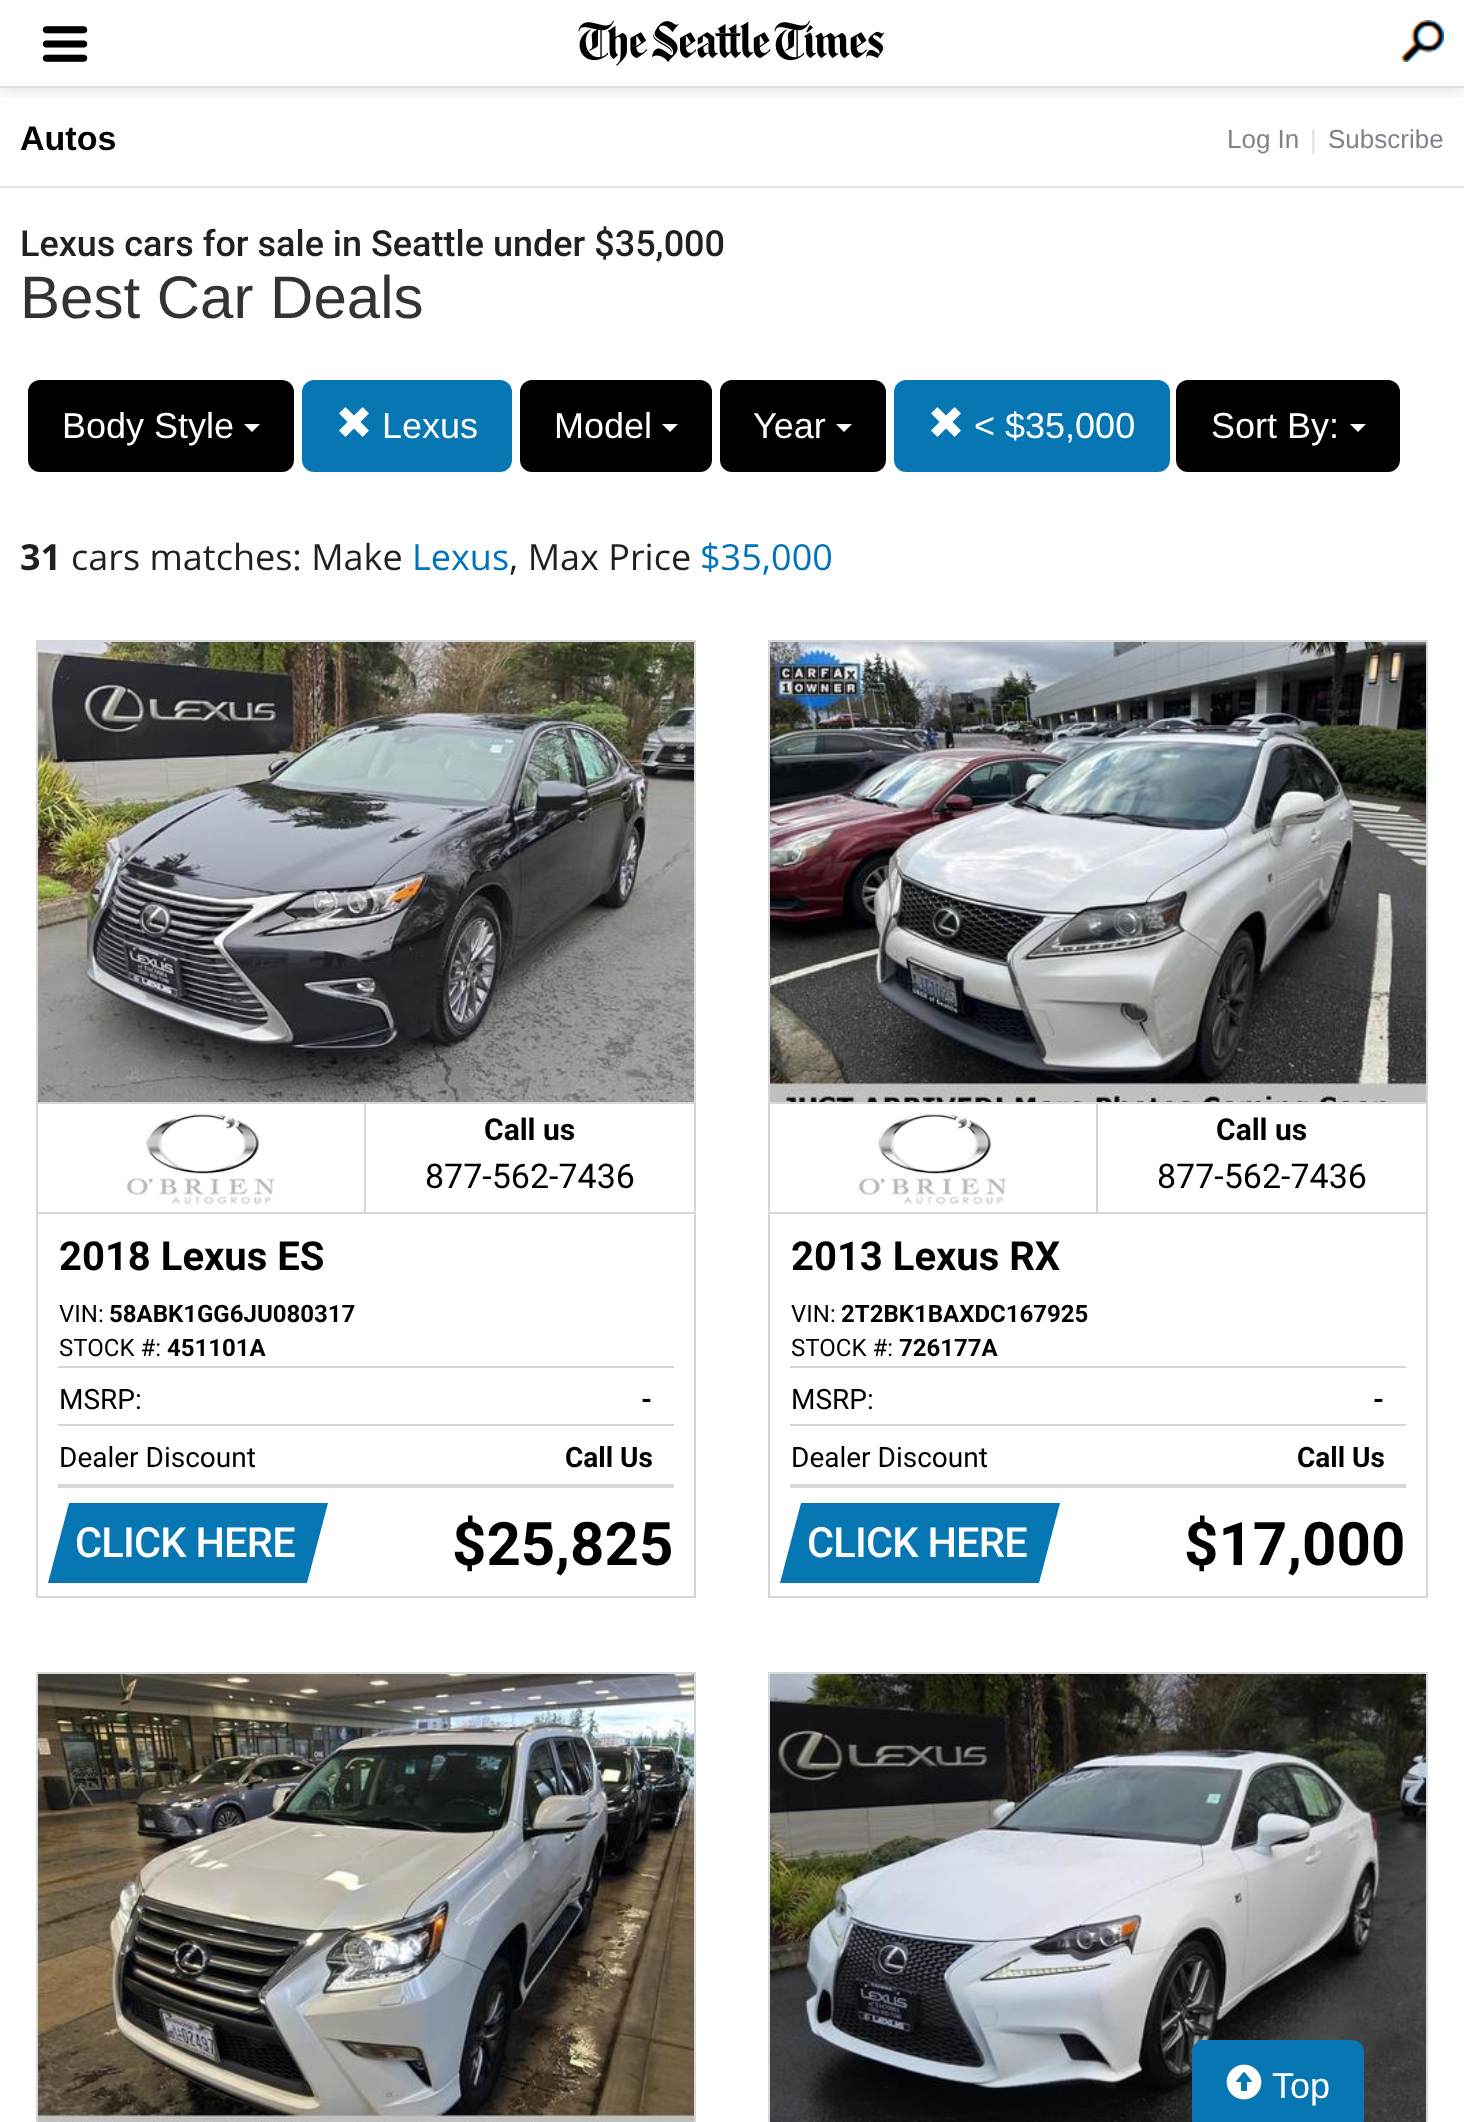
<!DOCTYPE html>
<meta charset="utf-8">
<style>body { margin: 0 } canvas { display: block }</style>
<canvas id="canvas" width="1464" height="2122"></canvas>
<script type="module">
  const canvas = document.getElementById("canvas");
  const ctx = canvas.getContext("2d");
  ctx.miterLimit = 4;
  ctx.fontKerning = "normal";
  async function loadImage(src) {
    const img = new Image();
    img.src = src;
    await img.decode();
    return img;
  }

  ctx.fillStyle = "#ffffff";
  ctx.fillRect(0, 0, 1464, 2122);
  ctx.save();
  ctx.beginPath();
  ctx.rect(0, 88, 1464, 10);
  ctx.clip();
  ctx.fillStyle = "rgba(0, 0, 0, 0.1)";
  ctx.filter = "blur(7px)";
  ctx.beginPath();
  ctx.rect(0, 4, 1464, 88);
  ctx.fill();
  ctx.filter = "none";
  ctx.restore();
  ctx.fillStyle = "#e0e0e0";
  ctx.fillRect(0, 86, 1464, 2);
  ctx.drawImage(await loadImage("img1.png"), 42, 26, 46, 36);
  ctx.drawImage(await loadImage("img2.png"), 578, 20, 307, 46);
  ctx.drawImage(await loadImage("img3.png"), 1402, 20, 42, 42);
  ctx.fillRect(0, 186, 1464, 2);
  ctx.font = "bold 34px Liberation Sans";
  ctx.fillStyle = "#000000";
  ctx.fillText("Autos", 20, 150);
  ctx.font = "26px Liberation Sans";
  ctx.fillStyle = "#7e838b";
  ctx.fillText("Log In", 1227, 148);
  ctx.fillStyle = "#e0e0e0";
  ctx.fillText("|", 1310, 148);
  ctx.fillStyle = "#7e838b";
  ctx.fillText("Subscribe", 1328, 148);
  ctx.font = "500 36px Roboto";
  ctx.fillStyle = "#231f20";
  ctx.fillText("Lexus cars for sale in Seattle under $35,000", 20, 256);
  ctx.font = "60px Liberation Sans";
  ctx.fillStyle = "#333333";
  ctx.fillText("Best Car Deals", 20, 318);
  ctx.fillStyle = "#000000";
  ctx.beginPath();
  ctx.roundRect(28, 380, 266, 92, 12);
  ctx.fill();
  ctx.font = "36px Liberation Sans";
  ctx.fillStyle = "#ffffff";
  ctx.fillText("Body Style", 62, 438);
  ctx.beginPath();
  ctx.moveTo(244, 424);
  ctx.lineTo(260, 424);
  ctx.lineTo(252, 432);
  ctx.closePath();
  ctx.fill();
  ctx.fillStyle = "#0777b3";
  ctx.beginPath();
  ctx.roundRect(302, 380, 210, 92, 12);
  ctx.fill();
  ctx.drawImage(await loadImage("img4.png"), 339, 407, 30, 30);
  ctx.fillStyle = "#ffffff";
  ctx.fillText("Lexus", 382, 438);
  ctx.fillStyle = "#000000";
  ctx.beginPath();
  ctx.roundRect(520, 380, 192, 92, 12);
  ctx.fill();
  ctx.fillStyle = "#ffffff";
  ctx.fillText("Model", 554, 438);
  ctx.beginPath();
  ctx.moveTo(662, 424);
  ctx.lineTo(678, 424);
  ctx.lineTo(670, 432);
  ctx.closePath();
  ctx.fill();
  ctx.fillStyle = "#000000";
  ctx.beginPath();
  ctx.roundRect(720, 380, 166, 92, 12);
  ctx.fill();
  ctx.fillStyle = "#ffffff";
  ctx.fillText("Year", 753, 438);
  ctx.beginPath();
  ctx.moveTo(836, 424);
  ctx.lineTo(852, 424);
  ctx.lineTo(844, 432);
  ctx.closePath();
  ctx.fill();
  ctx.fillStyle = "#0777b3";
  ctx.beginPath();
  ctx.roundRect(894, 380, 276, 92, 12);
  ctx.fill();
  ctx.drawImage(await loadImage("img4.png"), 931, 407, 30, 30);
  ctx.fillStyle = "#ffffff";
  ctx.fillText("< $35,000", 974, 438);
  ctx.fillStyle = "#000000";
  ctx.beginPath();
  ctx.roundRect(1176, 380, 224, 92, 12);
  ctx.fill();
  ctx.fillStyle = "#ffffff";
  ctx.fillText("Sort By:", 1211, 438);
  ctx.beginPath();
  ctx.moveTo(1350, 424);
  ctx.lineTo(1366, 424);
  ctx.lineTo(1358, 432);
  ctx.closePath();
  ctx.fill();
  ctx.font = "bold 36px Open Sans";
  ctx.fillStyle = "#231f20";
  ctx.fillText("31", 20, 570);
  ctx.font = "36px Open Sans";
  ctx.fillText("cars matches: Make", 71, 570);
  ctx.fillStyle = "#0073bd";
  ctx.fillText("Lexus", 412, 570);
  ctx.fillStyle = "#231f20";
  ctx.fillText(", Max Price", 509, 570);
  ctx.fillStyle = "#0073bd";
  ctx.fillText("$35,000", 700, 570);
  ctx.strokeStyle = "#d4d8d9";
  ctx.lineWidth = 2;
  ctx.strokeRect(37, 641, 658, 956);
  ctx.drawImage(await loadImage("img5.png"), 38, 642, 656, 460);
  ctx.fillStyle = "#d4d8d9";
  ctx.fillRect(38, 1102, 656, 2);
  ctx.fillRect(364, 1102, 2, 112);
  ctx.fillRect(38, 1212, 656, 2);
  ctx.drawImage(await loadImage("img6.png"), 127, 1113, 148, 92);
  ctx.font = "bold 30px Roboto";
  ctx.fillStyle = "#000000";
  ctx.fillText("Call us", 484, 1140);
  ctx.font = "34px Roboto";
  ctx.fillText("877-562-7436", 425, 1188);
  ctx.font = "bold 40px Roboto";
  ctx.fillText("2018 Lexus ES", 59, 1270);
  ctx.font = "24px Roboto";
  ctx.fillText("VIN:", 59, 1322);
  ctx.font = "bold 24px Roboto";
  ctx.fillText("58ABK1GG6JU080317", 109, 1322);
  ctx.font = "24px Roboto";
  ctx.fillText("STOCK #:", 59, 1356);
  ctx.font = "bold 24px Roboto";
  ctx.fillText("451101A", 167, 1356);
  ctx.fillStyle = "#d4d8d9";
  ctx.fillRect(58, 1366, 616, 2);
  ctx.fillRect(58, 1424, 616, 2);
  ctx.font = "28px Roboto";
  ctx.fillStyle = "#000000";
  ctx.fillText("MSRP:", 59, 1409);
  ctx.font = "bold 28px Roboto";
  ctx.fillText("-", 641, 1409);
  ctx.fillStyle = "#d4d8d9";
  ctx.fillRect(58, 1484, 616, 4);
  ctx.font = "28px Roboto";
  ctx.fillStyle = "#000000";
  ctx.fillText("Dealer Discount", 59, 1467);
  ctx.font = "bold 28px Roboto";
  ctx.fillText("Call Us", 565, 1467);
  ctx.fillStyle = "#0777b3";
  ctx.beginPath();
  ctx.moveTo(69, 1503);
  ctx.lineTo(328, 1503);
  ctx.lineTo(307, 1583);
  ctx.lineTo(48, 1583);
  ctx.closePath();
  ctx.fill();
  ctx.letterSpacing = "-0.75px";
  ctx.font = "500 41.5px Roboto";
  ctx.fillStyle = "#ffffff";
  ctx.fillText("CLICK HERE", 75, 1557);
  ctx.letterSpacing = "0px";
  ctx.font = "bold 60px Roboto";
  ctx.fillStyle = "#000000";
  ctx.fillText("$25,825", 452, 1565);
  ctx.strokeRect(769, 641, 658, 956);
  ctx.drawImage(await loadImage("img7.png"), 770, 642, 656, 460);
  ctx.fillStyle = "#d4d8d9";
  ctx.fillRect(770, 1102, 656, 2);
  ctx.fillRect(1096, 1102, 2, 112);
  ctx.fillRect(770, 1212, 656, 2);
  ctx.drawImage(await loadImage("img6.png"), 859, 1113, 148, 92);
  ctx.font = "bold 30px Roboto";
  ctx.fillStyle = "#000000";
  ctx.fillText("Call us", 1216, 1140);
  ctx.font = "34px Roboto";
  ctx.fillText("877-562-7436", 1157, 1188);
  ctx.font = "bold 40px Roboto";
  ctx.fillText("2013 Lexus RX", 791, 1270);
  ctx.font = "24px Roboto";
  ctx.fillText("VIN:", 791, 1322);
  ctx.font = "bold 24px Roboto";
  ctx.fillText("2T2BK1BAXDC167925", 841, 1322);
  ctx.font = "24px Roboto";
  ctx.fillText("STOCK #:", 791, 1356);
  ctx.font = "bold 24px Roboto";
  ctx.fillText("726177A", 899, 1356);
  ctx.fillStyle = "#d4d8d9";
  ctx.fillRect(790, 1366, 616, 2);
  ctx.fillRect(790, 1424, 616, 2);
  ctx.font = "28px Roboto";
  ctx.fillStyle = "#000000";
  ctx.fillText("MSRP:", 791, 1409);
  ctx.font = "bold 28px Roboto";
  ctx.fillText("-", 1373, 1409);
  ctx.fillStyle = "#d4d8d9";
  ctx.fillRect(790, 1484, 616, 4);
  ctx.font = "28px Roboto";
  ctx.fillStyle = "#000000";
  ctx.fillText("Dealer Discount", 791, 1467);
  ctx.font = "bold 28px Roboto";
  ctx.fillText("Call Us", 1297, 1467);
  ctx.fillStyle = "#0777b3";
  ctx.beginPath();
  ctx.moveTo(801, 1503);
  ctx.lineTo(1060, 1503);
  ctx.lineTo(1039, 1583);
  ctx.lineTo(780, 1583);
  ctx.closePath();
  ctx.fill();
  ctx.letterSpacing = "-0.75px";
  ctx.font = "500 41.5px Roboto";
  ctx.fillStyle = "#ffffff";
  ctx.fillText("CLICK HERE", 807, 1557);
  ctx.letterSpacing = "0px";
  ctx.font = "bold 60px Roboto";
  ctx.fillStyle = "#000000";
  ctx.fillText("$17,000", 1184, 1565);
  ctx.strokeRect(37, 1673, 658, 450);
  ctx.drawImage(await loadImage("img8.png"), 38, 1674, 656, 448);
  ctx.strokeRect(769, 1673, 658, 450);
  ctx.drawImage(await loadImage("img9.png"), 770, 1674, 656, 448);
  ctx.fillStyle = "#0777b3";
  ctx.beginPath();
  ctx.roundRect(1193, 2041, 170, 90, 11);
  ctx.fill();
  ctx.strokeStyle = "#0777b3";
  ctx.stroke();
  ctx.drawImage(await loadImage("img10.png"), 1226, 2064, 36, 36);
  ctx.font = "36px Liberation Sans";
  ctx.fillStyle = "#ffffff";
  ctx.fillText("Top", 1272, 2098);
</script>
